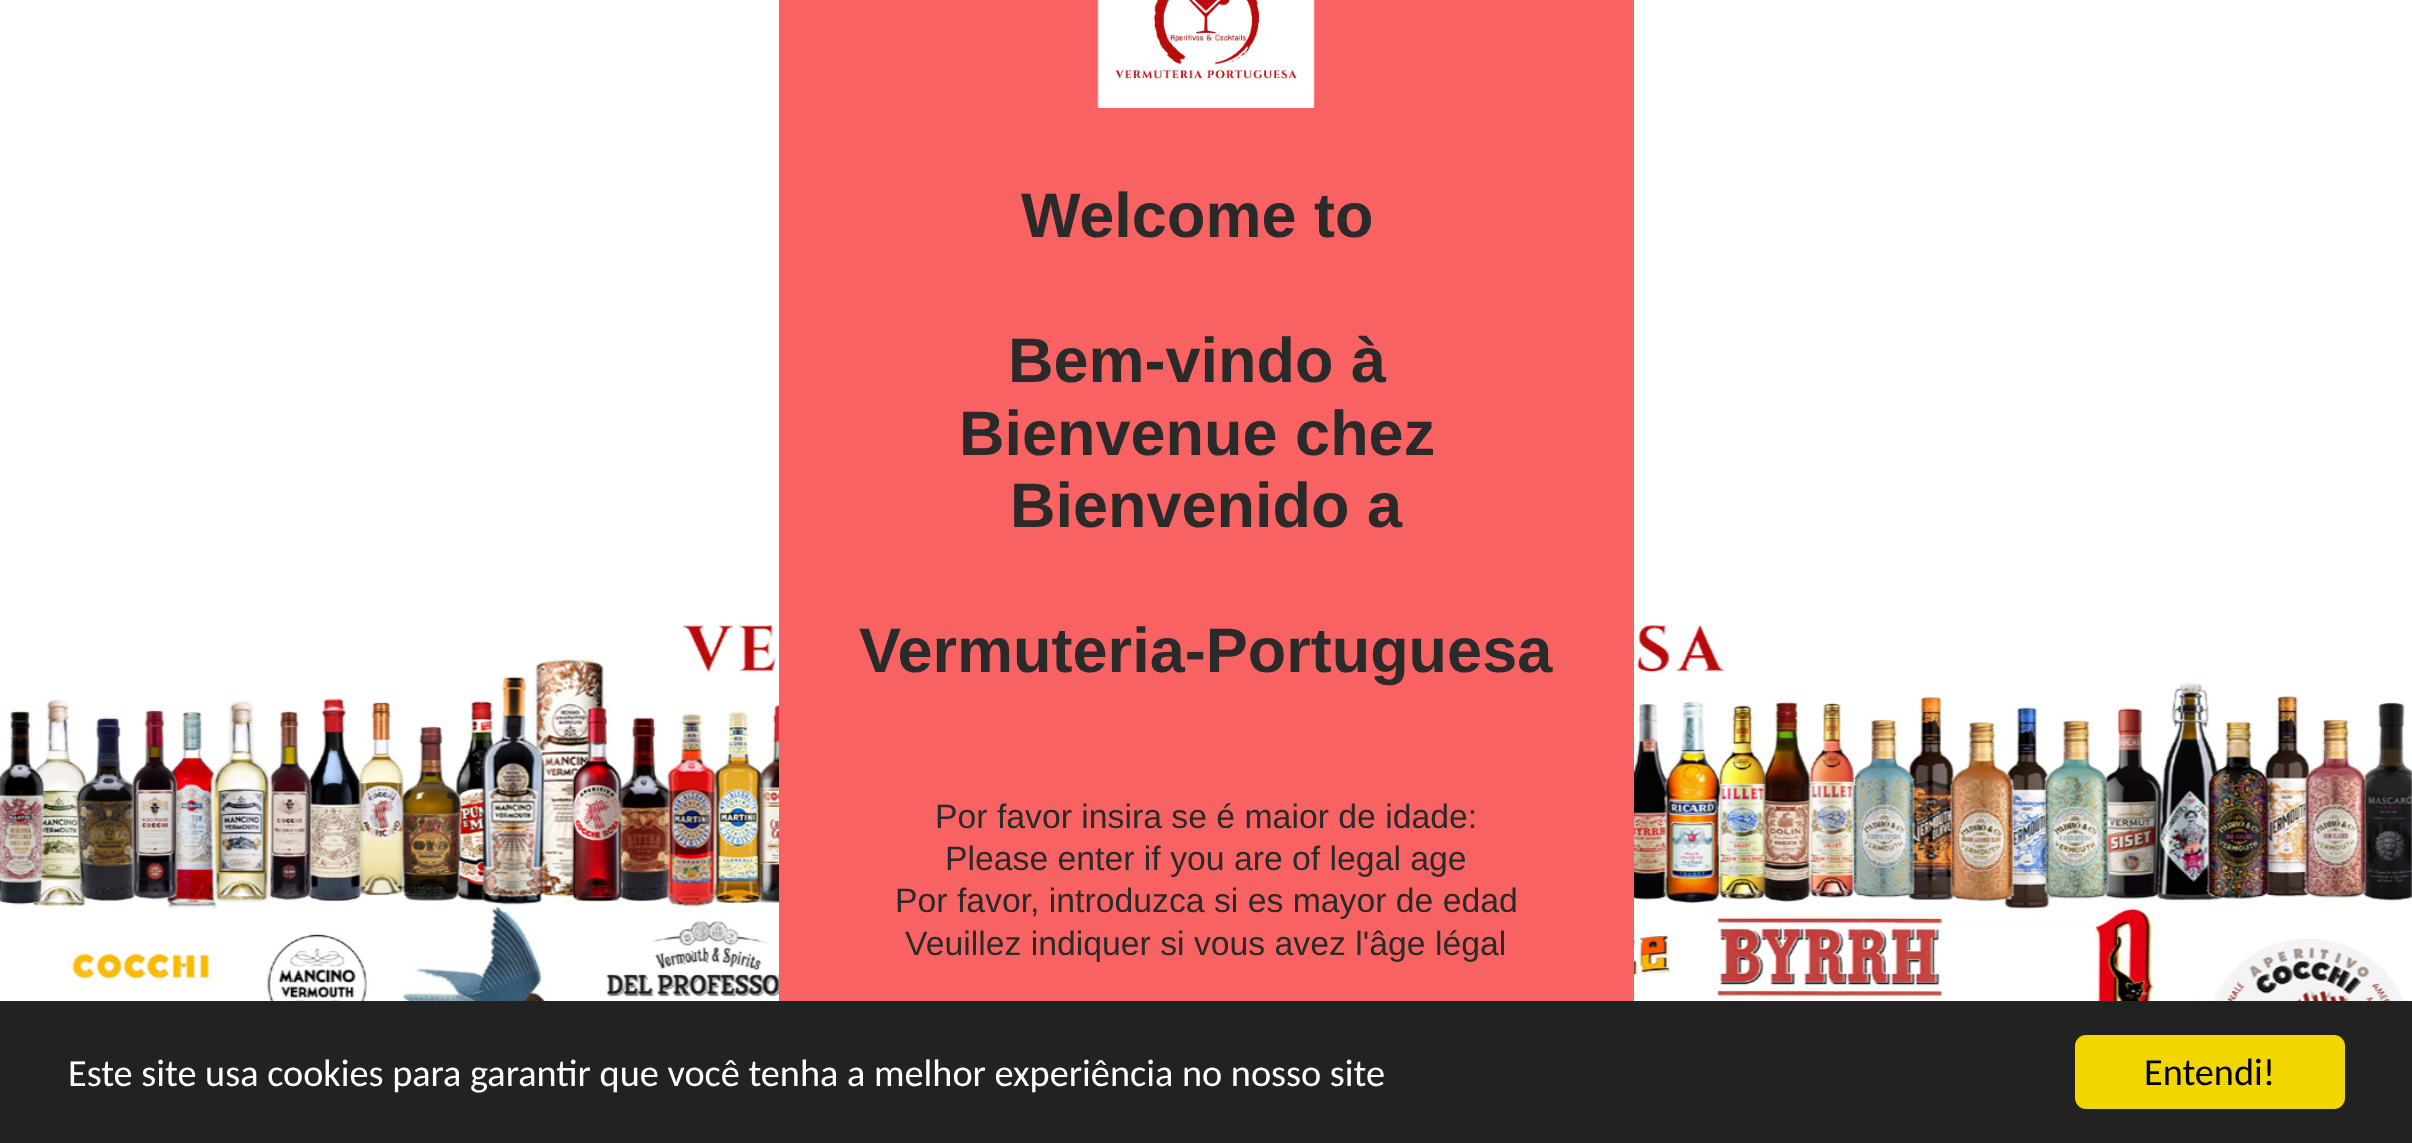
<!DOCTYPE html>
<meta charset="utf-8">
<style>body { margin: 0 } canvas { display: block }</style>
<canvas id="canvas" width="2412" height="1143"></canvas>
<script type="module">
  const canvas = document.getElementById("canvas");
  const ctx = canvas.getContext("2d");
  ctx.miterLimit = 4;
  ctx.fontKerning = "normal";
  async function loadImage(src) {
    const img = new Image();
    img.src = src;
    await img.decode();
    return img;
  }

  ctx.fillStyle = "#ffffff";
  ctx.fillRect(0, 0, 2412, 1143);
  ctx.drawImage(await loadImage("img1.png"), 0, 0, 2412, 1001);
  ctx.fillStyle = "#f86262";
  ctx.fillRect(779, 0, 855, 1001);
  ctx.drawImage(await loadImage("img2.png"), 1097, 0, 218, 108);
  ctx.font = "bold 63px Liberation Sans";
  ctx.fillStyle = "#2a2a2a";
  ctx.fillText("Welcome to", 1021, 237);
  ctx.fillText("Bem-vindo à", 1008, 382);
  ctx.fillText("Bienvenue chez", 959, 455);
  ctx.fillText("Bienvenido a", 1010, 527);
  ctx.fillText("Vermuteria-Portuguesa", 859, 672);
  ctx.font = "33.75px Liberation Sans";
  ctx.fillText("Por favor insira se é maior de idade:", 935, 828);
  ctx.fillText("Please enter if you are of legal age", 945, 870);
  ctx.fillText("Por favor, introduzca si es mayor de edad", 895, 912);
  ctx.fillText("Veuillez indiquer si vous avez l'âge légal", 905, 955);
  ctx.fillStyle = "#222222";
  ctx.fillRect(0, 1001, 2412, 142);
  ctx.font = "38.25px Carlito";
  ctx.fillStyle = "#ffffff";
  ctx.fillText("Este site usa cookies para garantir que você tenha a melhor experiência no nosso site", 68, 1086);
  ctx.fillStyle = "#f1d600";
  ctx.beginPath();
  ctx.roundRect(2075, 1035, 270, 74, 11);
  ctx.fill();
  ctx.fillStyle = "#000000";
  ctx.fillText("Entendi!", 2144, 1085);
</script>
